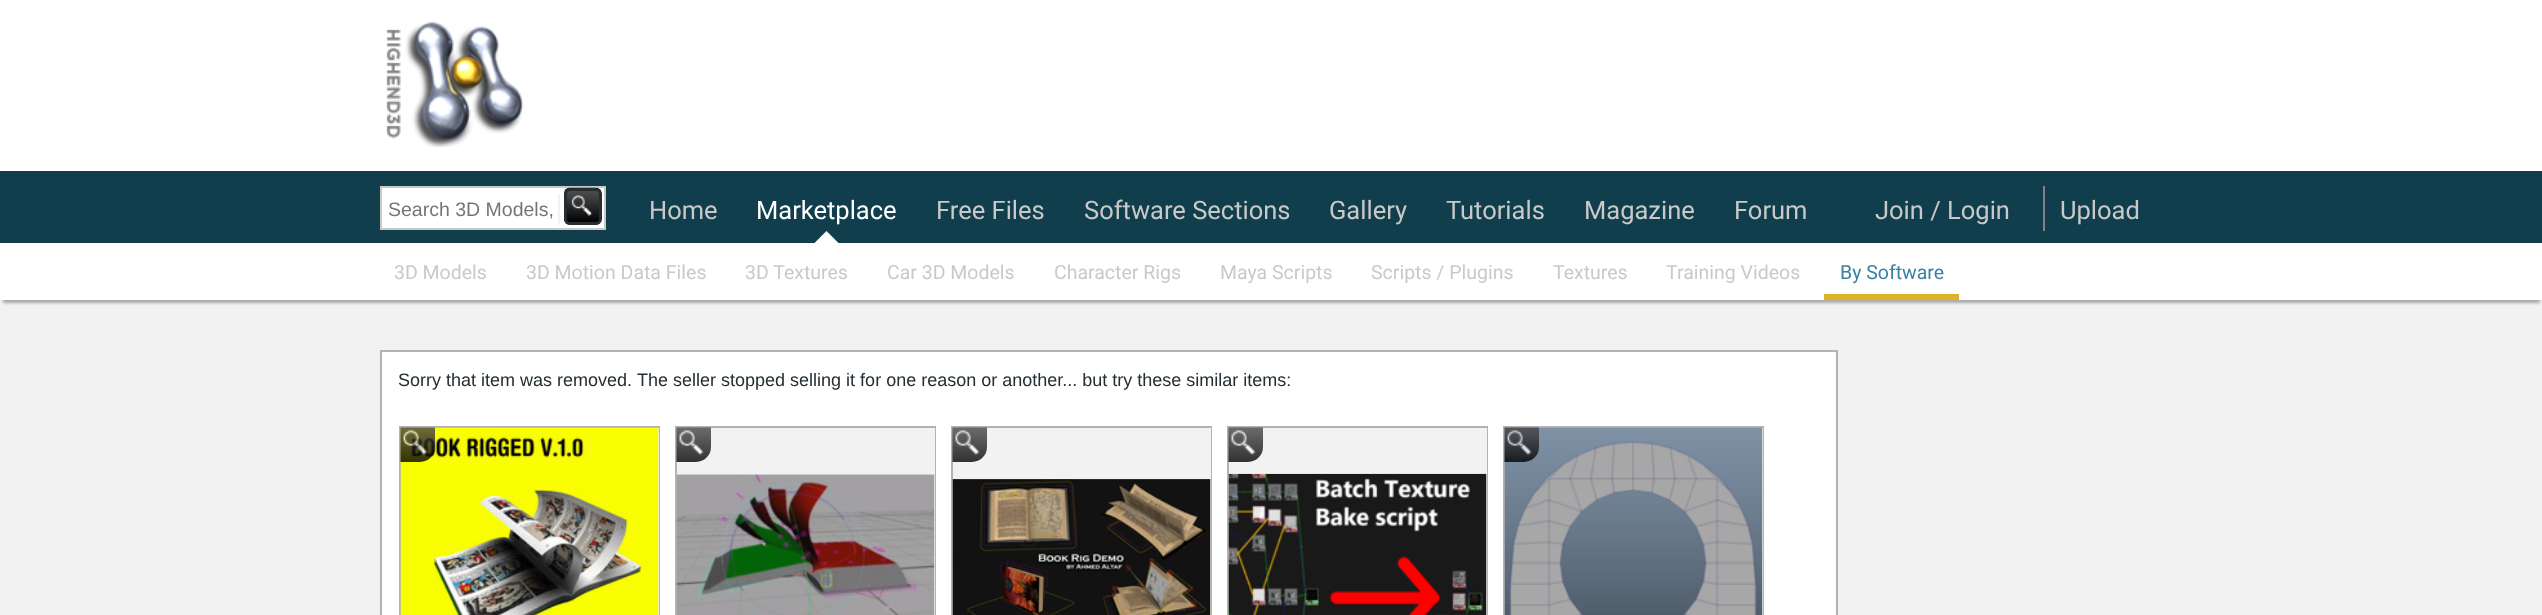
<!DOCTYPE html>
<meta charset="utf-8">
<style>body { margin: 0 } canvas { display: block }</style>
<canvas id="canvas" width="2542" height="615"></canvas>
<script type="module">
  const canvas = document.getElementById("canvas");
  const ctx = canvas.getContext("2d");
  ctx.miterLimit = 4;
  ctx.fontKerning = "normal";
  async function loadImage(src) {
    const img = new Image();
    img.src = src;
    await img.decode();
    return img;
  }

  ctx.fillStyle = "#f2f2f2";
  ctx.fillRect(0, 0, 2542, 615);
  ctx.fillStyle = "#ffffff";
  ctx.fillRect(0, 0, 2542, 171);
  ctx.drawImage(await loadImage("img1.png"), 386, 21, 138, 126);
  ctx.fillStyle = "#103e4c";
  ctx.fillRect(0, 171, 2542, 72);
  ctx.font = "25.5px Roboto";
  ctx.fillStyle = "#c9c9c9";
  ctx.fillText("Home", 649, 219);
  ctx.fillStyle = "#ffffff";
  ctx.fillText("Marketplace", 756, 219);
  ctx.beginPath();
  ctx.moveTo(838.5, 243);
  ctx.lineTo(814.5, 243);
  ctx.lineTo(826.5, 231);
  ctx.closePath();
  ctx.fill();
  ctx.fillStyle = "#c9c9c9";
  ctx.fillText("Free Files", 936, 219);
  ctx.fillText("Software Sections", 1084, 219);
  ctx.fillText("Gallery", 1329, 219);
  ctx.fillText("Tutorials", 1446, 219);
  ctx.fillText("Magazine", 1584, 219);
  ctx.fillText("Forum", 1734, 219);
  ctx.fillText("Join / Login", 1875, 219);
  ctx.fillStyle = "#828282";
  ctx.fillRect(2043, 186, 2, 45);
  ctx.fillStyle = "#c9c9c9";
  ctx.fillText("Upload", 2060, 219);
  ctx.fillStyle = "rgba(0, 0, 0, 0.3)";
  ctx.filter = "blur(1.5px)";
  ctx.beginPath();
  ctx.rect(3, 252, 2537, 51);
  ctx.fill();
  ctx.filter = "none";
  ctx.fillStyle = "#ffffff";
  ctx.fillRect(0, 243, 2542, 57);
  ctx.font = "19.5px Roboto";
  ctx.fillStyle = "#c9c9c9";
  ctx.fillText("3D Models", 394, 279);
  ctx.fillText("3D Motion Data Files", 526, 279);
  ctx.fillText("3D Textures", 745, 279);
  ctx.fillText("Car 3D Models", 887, 279);
  ctx.fillText("Character Rigs", 1054, 279);
  ctx.fillText("Maya Scripts", 1220, 279);
  ctx.fillText("Scripts / Plugins", 1371, 279);
  ctx.fillText("Textures", 1553, 279);
  ctx.fillText("Training Videos", 1666, 279);
  ctx.fillStyle = "#3980a3";
  ctx.fillText("By Software", 1840, 279);
  ctx.fillStyle = "#ddb224";
  ctx.fillRect(1824, 294, 135, 6);
  ctx.fillStyle = "#ffffff";
  ctx.beginPath();
  ctx.rect(381, 187, 224, 42);
  ctx.fill();
  ctx.strokeStyle = "#c9c9c9";
  ctx.lineWidth = 2;
  ctx.stroke();
  ctx.fillStyle = "#f2f2f2";
  ctx.fillRect(558, 194, 2, 31);
  ctx.font = "19.5px Liberation Sans";
  ctx.fillStyle = "#757575";
  ctx.fillText("Search 3D Models,", 388, 216);
  ctx.drawImage(await loadImage("img2.png"), 564, 187, 38, 38);
  ctx.beginPath();
  ctx.roundRect(565.5, 189.5, 35, 34, 4.5);
  ctx.strokeStyle = "#242e33";
  ctx.lineWidth = 3;
  ctx.stroke();
  ctx.fillStyle = "#ffffff";
  ctx.beginPath();
  ctx.rect(381, 351, 1456, 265);
  ctx.fill();
  ctx.strokeStyle = "#b3b3b3";
  ctx.lineWidth = 2;
  ctx.stroke();
  ctx.font = "18px Liberation Sans";
  ctx.fillStyle = "#242e33";
  ctx.fillText("Sorry that item was removed.", 398, 386);
  ctx.fillText("The seller stopped selling it for one reason or another... but try these similar items:", 637, 386);
  ctx.strokeRect(400, 427, 259, 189);
  ctx.fillStyle = "#f2f2f2";
  ctx.fillRect(658, 428, 1, 187);
  ctx.drawImage(await loadImage("img3.png"), 400, 427, 259, 188);
  ctx.drawImage(await loadImage("img4.png"), 400, 427, 35, 35);
  ctx.strokeRect(676, 427, 259, 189);
  ctx.fillRect(677, 428, 258, 187);
  ctx.drawImage(await loadImage("img5.png"), 676, 427, 35, 35);
  ctx.drawImage(await loadImage("img6.png"), 676, 474, 259, 141);
  ctx.strokeRect(952, 427, 259, 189);
  ctx.fillRect(953, 428, 258, 187);
  ctx.drawImage(await loadImage("img7.png"), 952, 427, 35, 35);
  ctx.drawImage(await loadImage("img8.png"), 952, 479, 259, 136);
  ctx.strokeRect(1228, 427, 259, 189);
  ctx.fillRect(1229, 428, 258, 187);
  ctx.drawImage(await loadImage("img7.png"), 1228, 427, 35, 35);
  ctx.drawImage(await loadImage("img9.png"), 1228, 473, 259, 142);
  ctx.strokeRect(1504, 427, 259, 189);
  ctx.fillRect(1762, 428, 1, 187);
  ctx.drawImage(await loadImage("img10.png"), 1504, 427, 259, 188);
  ctx.drawImage(await loadImage("img11.png"), 1504, 427, 35, 35);
</script>
